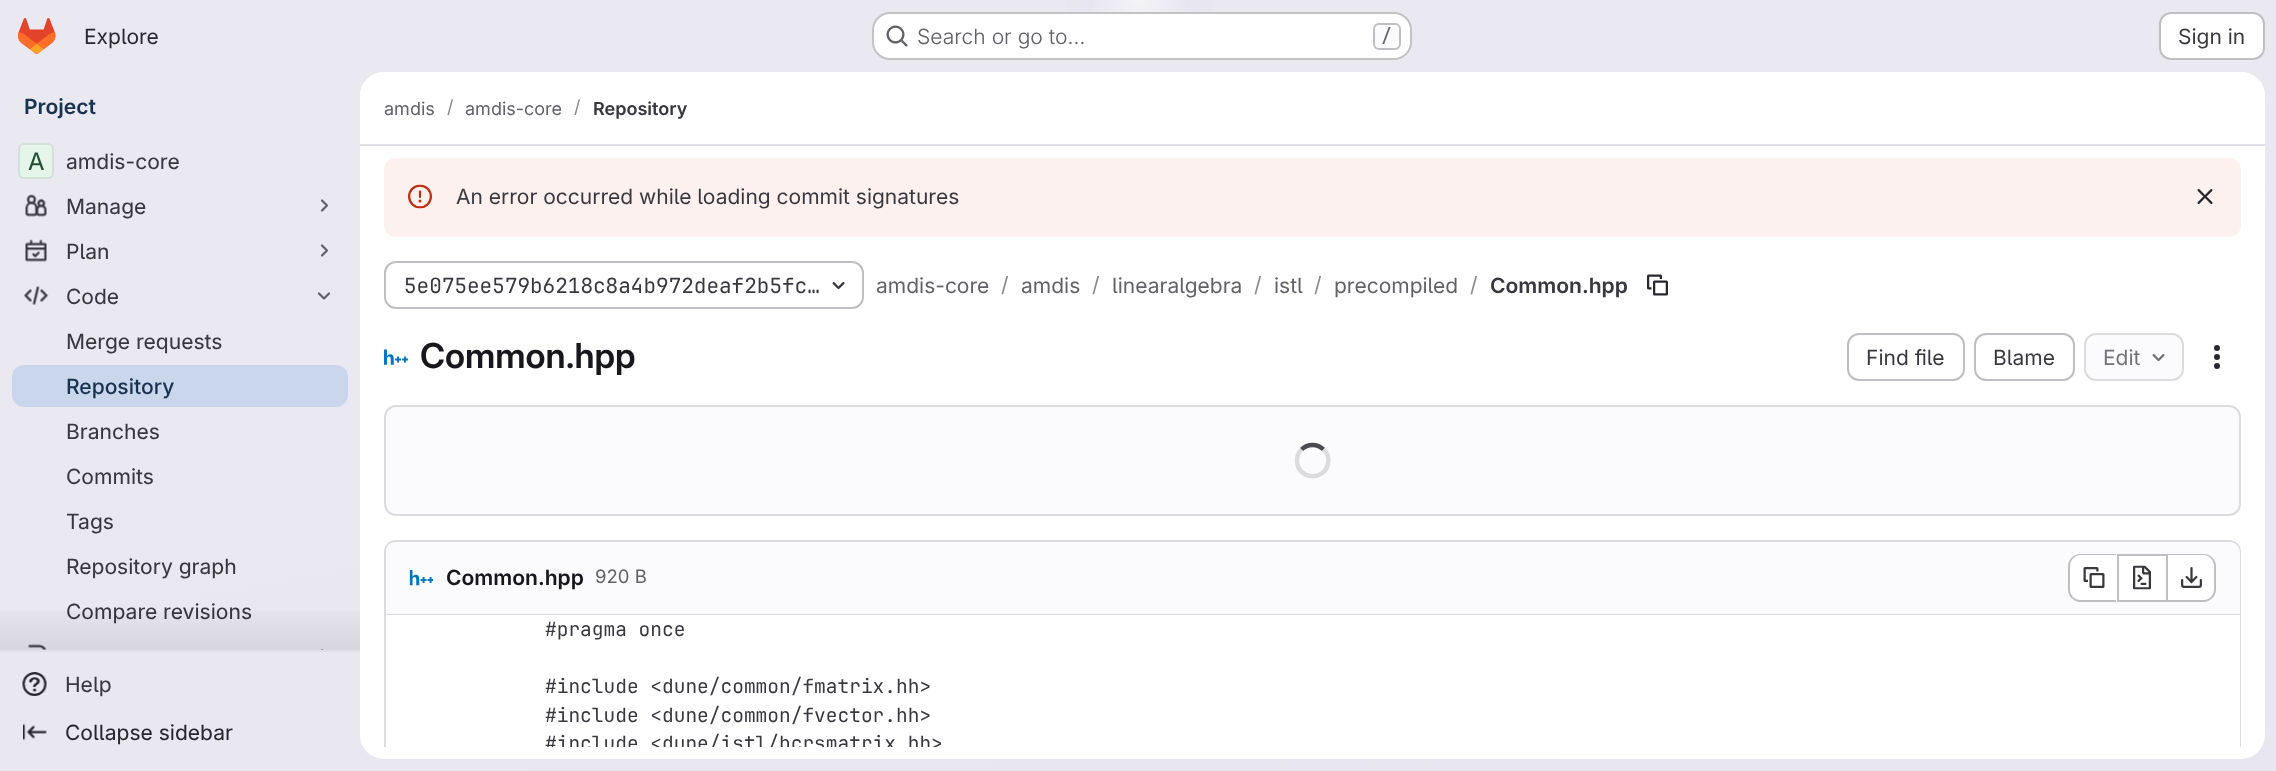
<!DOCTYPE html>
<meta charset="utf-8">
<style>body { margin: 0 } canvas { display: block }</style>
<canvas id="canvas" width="2276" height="771"></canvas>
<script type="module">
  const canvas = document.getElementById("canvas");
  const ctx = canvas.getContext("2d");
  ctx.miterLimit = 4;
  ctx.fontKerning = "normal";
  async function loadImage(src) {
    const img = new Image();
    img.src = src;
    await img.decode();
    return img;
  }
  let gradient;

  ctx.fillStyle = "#ffffff";
  ctx.fillRect(0, 0, 2276, 771);
  gradient = ctx.createLinearGradient(1239, 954, 1038, -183);
  gradient.addColorStop(0, "#e8e6f0");
  gradient.addColorStop(0.7, "#eae9f2");
  ctx.fillStyle = gradient;
  ctx.fillRect(0, 0, 2276, 771);
  gradient = ctx.createRadialGradient(1139, 0, 0, 1139, 0, 1139);
  gradient.addColorStop(0, "#e4e2ed");
  gradient.addColorStop(0.09, "rgba(228, 226, 237, 0)");
  ctx.fillStyle = gradient;
  ctx.beginPath();
  ctx.rect(1066, 0, 146, 50);
  ctx.save();
  ctx.clip();
  ctx.scale(1, 771 / 1139);
  ctx.fillRect(0, 0, 2276, 1139);
  ctx.restore();
  gradient = ctx.createRadialGradient(1139, 0, 0, 1139, 0, 1139);
  gradient.addColorStop(0, "#e4e2ec");
  gradient.addColorStop(0.07, "rgba(228, 226, 236, 0)");
  ctx.fillStyle = gradient;
  ctx.beginPath();
  ctx.rect(1102, 5, 74, 1);
  ctx.save();
  ctx.clip();
  ctx.scale(1, 771 / 1139);
  ctx.fillRect(0, 0, 2276, 1139);
  ctx.restore();
  gradient = ctx.createRadialGradient(1139, 0, 0, 1139, 0, 1375);
  gradient.addColorStop(0, "rgba(255, 255, 255, 0.6)");
  gradient.addColorStop(0.04, "rgba(255, 255, 255, 0)");
  ctx.fillStyle = gradient;
  ctx.fillRect(1093, 0, 92, 12);
  ctx.drawImage(await loadImage("img1.png"), 18, 18, 38, 36);
  ctx.font = "21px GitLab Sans";
  ctx.fillStyle = "#28272d";
  ctx.fillText("Explore", 84, 44);
  ctx.fillStyle = "#ffffff";
  ctx.beginPath();
  ctx.roundRect(872, 12, 540, 48, 18);
  ctx.fill();
  ctx.beginPath();
  ctx.roundRect(873, 13, 538, 46, 17);
  ctx.strokeStyle = "rgba(5, 5, 6, 0.24)";
  ctx.lineWidth = 2;
  ctx.stroke();
  ctx.drawImage(await loadImage("img2.png"), 886, 25, 22, 22);
  ctx.font = "300 21px GitLab Sans";
  ctx.fillStyle = "#626168";
  ctx.fillText("Search or go to…", 917, 44);
  ctx.fillStyle = "#fbfafd";
  ctx.beginPath();
  ctx.roundRect(1374, 24, 26, 25, 5);
  ctx.fill();
  ctx.strokeStyle = "#bfbfc3";
  ctx.stroke();
  ctx.font = "500 18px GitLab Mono";
  ctx.fillStyle = "#626168";
  ctx.fillText("/", 1381, 42);
  ctx.fillStyle = "#ffffff";
  ctx.beginPath();
  ctx.roundRect(2160, 13, 104, 46, 11);
  ctx.fill();
  ctx.stroke();
  ctx.font = "21px GitLab Sans";
  ctx.fillStyle = "#3a383f";
  ctx.fillText("Sign in", 2178, 44);
  ctx.font = "600 21px GitLab Sans";
  ctx.fillStyle = "#18334e";
  ctx.fillText("Project", 24, 114);
  ctx.fillStyle = "#e1dfec";
  ctx.fillRect(0, 650, 360, 2);
  ctx.fillStyle = "#ffffff";
  ctx.beginPath();
  ctx.roundRect(18, 143, 36, 36, 6);
  ctx.fill();
  ctx.fillStyle = "rgba(145, 212, 168, 0.24)";
  ctx.beginPath();
  ctx.roundRect(18, 143, 36, 36, 6);
  ctx.fill();
  ctx.beginPath();
  ctx.roundRect(19, 144, 34, 34, 5);
  ctx.strokeStyle = "#d3e1d8";
  ctx.stroke();
  ctx.font = "24px 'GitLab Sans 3'";
  ctx.fillStyle = "#225131";
  ctx.fillText("A", 28, 170);
  ctx.font = "21px 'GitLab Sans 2'";
  ctx.fillStyle = "#3a383f";
  ctx.fillText("amdis-core", 66, 169);
  ctx.drawImage(await loadImage("img3.png"), 25, 194, 22, 23);
  ctx.fillText("Manage", 66, 214);
  ctx.beginPath();
  ctx.moveTo(322, 200.5);
  ctx.lineTo(327, 205.5);
  ctx.lineTo(322, 210.5);
  ctx.strokeStyle = "#626168";
  ctx.lineWidth = 2.2;
  ctx.lineCap = "round";
  ctx.lineJoin = "round";
  ctx.stroke();
  ctx.drawImage(await loadImage("img4.png"), 25, 239, 22, 23);
  ctx.fillText("Plan", 66, 259);
  ctx.beginPath();
  ctx.moveTo(322, 245.5);
  ctx.lineTo(327, 250.5);
  ctx.lineTo(322, 255.5);
  ctx.stroke();
  ctx.drawImage(await loadImage("img5.png"), 23, 286, 26, 19);
  ctx.fillText("Code", 66, 304);
  ctx.beginPath();
  ctx.moveTo(329, 293.5);
  ctx.lineTo(324, 298.5);
  ctx.lineTo(319, 293.5);
  ctx.stroke();
  ctx.fillText("Merge requests", 66, 349);
  ctx.fillStyle = "#c9d6eb";
  ctx.beginPath();
  ctx.roundRect(12, 365, 336, 42, 12);
  ctx.fill();
  ctx.font = "500 21px GitLab Sans";
  ctx.fillStyle = "#18334e";
  ctx.fillText("Repository", 66, 394);
  ctx.font = "21px 'GitLab Sans 2'";
  ctx.fillStyle = "#3a383f";
  ctx.fillText("Branches", 66, 439);
  ctx.fillText("Commits", 66, 484);
  ctx.fillText("Tags", 66, 529);
  ctx.fillText("Repository graph", 66, 574);
  ctx.fillText("Compare revisions", 66, 619);
  ctx.drawImage(await loadImage("img6.png"), 28, 644, 19, 6);
  ctx.save();
  ctx.beginPath();
  ctx.rect(312, 644, 24, 6);
  ctx.clip();
  ctx.beginPath();
  ctx.moveTo(322, 650.5);
  ctx.lineTo(327, 655.5);
  ctx.lineTo(322, 660.5);
  ctx.stroke();
  ctx.restore();
  gradient = ctx.createLinearGradient(180, 596, 180, 650);
  gradient.addColorStop(0, "rgba(5, 5, 6, 0)");
  gradient.addColorStop(1, "rgba(5, 5, 6, 0.08)");
  ctx.fillStyle = gradient;
  ctx.fillRect(0, 611, 360, 39);
  ctx.drawImage(await loadImage("img7.png"), 22, 672, 25, 24);
  ctx.fillStyle = "#3a383f";
  ctx.fillText("Help", 65, 692);
  ctx.drawImage(await loadImage("img8.png"), 23, 724, 24, 16);
  ctx.fillStyle = "#28272d";
  ctx.fillText("Collapse sidebar", 65, 740);
  ctx.fillStyle = "#ffffff";
  ctx.beginPath();
  ctx.roundRect(360, 72, 1905, 687, 24);
  ctx.fill();
  ctx.beginPath();
  ctx.roundRect(360, 72, 1905, 74, [24, 24, 0, 0]);
  ctx.fill();
  ctx.fillStyle = "#e1dfec";
  ctx.fillRect(360, 144, 1905, 2);
  ctx.font = "18px GitLab Sans";
  ctx.fillStyle = "#626168";
  ctx.fillText("amdis", 384, 115);
  ctx.fillStyle = "#89888d";
  ctx.fillText("/", 447, 113);
  ctx.fillStyle = "#626168";
  ctx.fillText("amdis-core", 465, 115);
  ctx.fillStyle = "#89888d";
  ctx.fillText("/", 574, 113);
  ctx.font = "600 18px GitLab Sans";
  ctx.fillStyle = "#3a383f";
  ctx.fillText("Repository", 593, 115);
  ctx.fillStyle = "#fcf1ef";
  ctx.beginPath();
  ctx.roundRect(384, 158, 1857, 79, 12);
  ctx.fill();
  ctx.drawImage(await loadImage("img9.png"), 408, 184, 24, 25);
  ctx.font = "21px GitLab Sans";
  ctx.fillStyle = "#3a383f";
  ctx.fillText("An error occurred while loading commit signatures", 456, 204);
  ctx.drawImage(await loadImage("img10.png"), 2197, 189, 16, 15);
  ctx.beginPath();
  ctx.roundRect(385, 262, 478, 46, 11);
  ctx.strokeStyle = "#bfbfc3";
  ctx.lineWidth = 2;
  ctx.lineJoin = "miter";
  ctx.stroke();
  ctx.font = "21px GitLab Mono";
  ctx.fillText("5e075ee579b6218c8a4b972deaf2b5fc…", 404, 293);
  ctx.drawImage(await loadImage("img11.png"), 832, 282, 13, 8);
  ctx.font = "21px GitLab Sans";
  ctx.fillStyle = "#626168";
  ctx.fillText("amdis-core", 876, 293);
  ctx.fillStyle = "#89888d";
  ctx.fillText("/", 1001, 292);
  ctx.fillStyle = "#626168";
  ctx.fillText("amdis", 1021, 293);
  ctx.fillStyle = "#89888d";
  ctx.fillText("/", 1092, 292);
  ctx.fillStyle = "#626168";
  ctx.fillText("linearalgebra", 1112, 293);
  ctx.fillStyle = "#89888d";
  ctx.fillText("/", 1254, 292);
  ctx.fillStyle = "#626168";
  ctx.fillText("istl", 1274, 293);
  ctx.fillStyle = "#89888d";
  ctx.fillText("/", 1314, 292);
  ctx.fillStyle = "#626168";
  ctx.fillText("precompiled", 1334, 293);
  ctx.fillStyle = "#89888d";
  ctx.fillText("/", 1470, 292);
  ctx.font = "600 21px GitLab Sans";
  ctx.fillStyle = "#3a383f";
  ctx.fillText("Common.hpp", 1490, 293);
  ctx.drawImage(await loadImage("img12.png"), 1647, 274, 21, 22);
  ctx.drawImage(await loadImage("img13.png"), 384, 349, 24, 16);
  ctx.font = "600 34.5px 'GitLab Sans 2'";
  ctx.fillStyle = "#18171d";
  ctx.fillText("Common.hpp", 420, 368);
  ctx.beginPath();
  ctx.roundRect(1848, 334, 116, 46, 11);
  ctx.stroke();
  ctx.font = "21px GitLab Sans";
  ctx.fillStyle = "#3a383f";
  ctx.fillText("Find file", 1866, 365);
  ctx.beginPath();
  ctx.roundRect(1975, 334, 99, 46, 11);
  ctx.stroke();
  ctx.fillText("Blame", 1993, 365);
  ctx.fillStyle = "#fbfafd";
  ctx.beginPath();
  ctx.roundRect(2085, 334, 98, 46, 11);
  ctx.fill();
  ctx.strokeStyle = "#dcdcde";
  ctx.stroke();
  ctx.fillStyle = "#737278";
  ctx.fillText("Edit", 2103, 365);
  ctx.drawImage(await loadImage("img14.png"), 2152, 354, 13, 8);
  ctx.drawImage(await loadImage("img15.png"), 2214, 345, 6, 24);
  ctx.fillStyle = "#fbfafd";
  ctx.beginPath();
  ctx.roundRect(385, 406, 1855, 109, 11);
  ctx.fill();
  ctx.stroke();
  ctx.beginPath();
  ctx.moveTo(1301.5, 449.5);
  ctx.bezierCurveTo(1307.5, 443.5, 1317.5, 443.5, 1323.5, 449.5);
  ctx.strokeStyle = "#4c4b51";
  ctx.lineWidth = 4.5;
  ctx.lineCap = "butt";
  ctx.stroke();
  ctx.beginPath();
  ctx.moveTo(1323.5, 449.5);
  ctx.bezierCurveTo(1327.5, 453, 1329, 458.5, 1328, 463.5);
  ctx.bezierCurveTo(1324.5, 482, 1297, 479.5, 1297, 460.5);
  ctx.bezierCurveTo(1297, 456.5, 1298.5, 452.5, 1301.5, 449.5);
  ctx.strokeStyle = "#dcdcde";
  ctx.stroke();
  ctx.save();
  ctx.beginPath();
  ctx.rect(360, 146, 1905, 601);
  ctx.clip();
  ctx.fillStyle = "#dcdcde";
  ctx.beginPath();
  ctx.moveTo(396, 540);
  ctx.bezierCurveTo(389, 540, 384, 545, 384, 552);
  ctx.lineTo(384, 759);
  ctx.lineTo(386, 759);
  ctx.lineTo(386, 552);
  ctx.bezierCurveTo(386, 546, 390, 542, 396, 542);
  ctx.lineTo(2229, 542);
  ctx.bezierCurveTo(2235, 542, 2239, 546, 2239, 552);
  ctx.lineTo(2239, 759);
  ctx.lineTo(2241, 759);
  ctx.lineTo(2241, 552);
  ctx.bezierCurveTo(2241, 545, 2236, 540, 2229, 540);
  ctx.closePath();
  ctx.fill();
  ctx.restore();
  ctx.beginPath();
  ctx.roundRect(386, 542, 1854, 73, [11, 11, 0, 0]);
  ctx.fill();
  ctx.fillStyle = "#dcdcde";
  ctx.fillRect(386, 614, 1854, 1);
  ctx.drawImage(await loadImage("img16.png"), 409, 570, 25, 16);
  ctx.font = "600 21px GitLab Sans";
  ctx.fillStyle = "#18171d";
  ctx.fillText("Common.hpp", 446, 585);
  ctx.font = "18.5px GitLab Sans";
  ctx.fillStyle = "#626168";
  ctx.fillText("920 B", 595, 583);
  ctx.fillStyle = "#ffffff";
  ctx.beginPath();
  ctx.roundRect(2070, 555, 47, 45, [11, 0, 0, 11]);
  ctx.fill();
  ctx.fillStyle = "#bfbfc3";
  ctx.beginPath();
  ctx.moveTo(2080, 554);
  ctx.lineTo(2116, 554);
  ctx.lineTo(2116, 602);
  ctx.lineTo(2080, 602);
  ctx.bezierCurveTo(2074, 602, 2068, 596, 2068, 590);
  ctx.lineTo(2068, 566);
  ctx.bezierCurveTo(2068, 559, 2074, 554, 2080, 554);
  ctx.closePath();
  ctx.moveTo(2080, 555);
  ctx.lineTo(2116, 555);
  ctx.lineTo(2116, 600);
  ctx.lineTo(2080, 600);
  ctx.bezierCurveTo(2075, 600, 2070, 595, 2070, 590);
  ctx.lineTo(2070, 566);
  ctx.bezierCurveTo(2070, 560, 2075, 555, 2080, 555);
  ctx.closePath();
  ctx.fill("evenodd");
  ctx.drawImage(await loadImage("img17.png"), 2083, 567, 22, 21);
  ctx.fillStyle = "#ffffff";
  ctx.fillRect(2119, 556, 47, 44);
  ctx.fillStyle = "#bfbfc3";
  ctx.fillRect(2118, 554, 48, 2);
  ctx.fillRect(2118, 600, 48, 2);
  ctx.fillRect(2117, 554, 2, 48);
  ctx.drawImage(await loadImage("img18.png"), 2133, 565, 18, 25);
  ctx.fillStyle = "#ffffff";
  ctx.beginPath();
  ctx.roundRect(2168, 555, 46, 45, [0, 11, 11, 0]);
  ctx.fill();
  ctx.fillStyle = "#bfbfc3";
  ctx.beginPath();
  ctx.moveTo(2168, 554);
  ctx.lineTo(2204, 554);
  ctx.bezierCurveTo(2210, 554, 2216, 559, 2216, 566);
  ctx.lineTo(2216, 590);
  ctx.bezierCurveTo(2216, 596, 2210, 602, 2204, 602);
  ctx.lineTo(2168, 602);
  ctx.closePath();
  ctx.moveTo(2168, 555);
  ctx.lineTo(2204, 555);
  ctx.bezierCurveTo(2209, 555, 2214, 560, 2214, 566);
  ctx.lineTo(2214, 590);
  ctx.bezierCurveTo(2214, 595, 2209, 600, 2204, 600);
  ctx.lineTo(2168, 600);
  ctx.closePath();
  ctx.fill("evenodd");
  ctx.fillRect(2166, 554, 2, 48);
  ctx.drawImage(await loadImage("img19.png"), 2181, 567, 21, 21);
  ctx.fillStyle = "#ffffff";
  ctx.fillRect(2239, 615, 1, 132);
  ctx.font = "19.5px GitLab Mono";
  ctx.fillStyle = "#3a383f";
  ctx.fillText("#pragma once", 545, 636);
  ctx.fillText("#include <dune/common/fmatrix.hh>", 545, 693);
  ctx.fillText("#include <dune/common/fvector.hh>", 545, 722);
  ctx.save();
  ctx.beginPath();
  ctx.rect(360, 146, 1905, 601);
  ctx.clip();
  ctx.fillText("#include <dune/istl/bcrsmatrix.hh>", 545, 750);
  ctx.restore();
</script>
